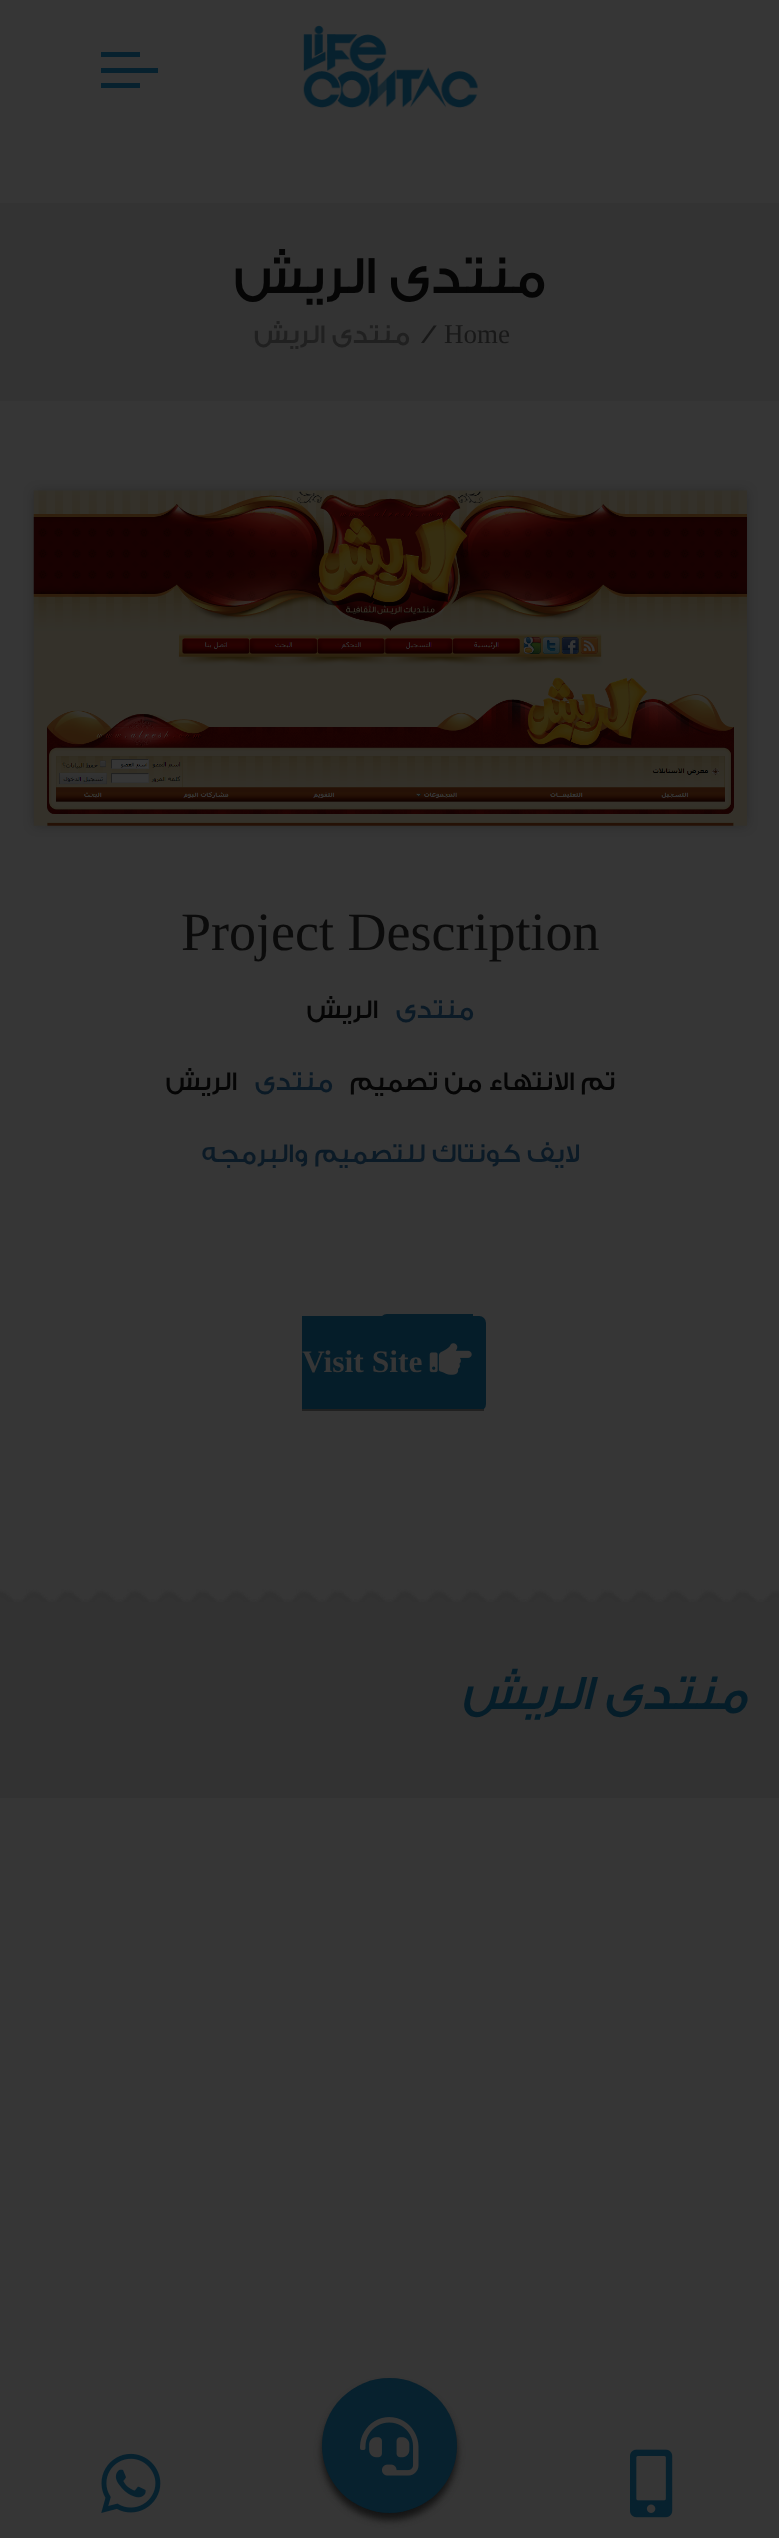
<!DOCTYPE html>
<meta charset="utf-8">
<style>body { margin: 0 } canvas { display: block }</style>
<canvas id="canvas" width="779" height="2538"></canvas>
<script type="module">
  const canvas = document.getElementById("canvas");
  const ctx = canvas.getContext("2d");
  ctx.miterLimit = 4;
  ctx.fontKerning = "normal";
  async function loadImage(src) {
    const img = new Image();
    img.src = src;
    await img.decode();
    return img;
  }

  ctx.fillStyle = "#363636";
  ctx.fillRect(0, 0, 779, 2538);
  ctx.drawImage(await loadImage("img1.png"), 303, 25, 175, 83);
  ctx.fillStyle = "#07212e";
  ctx.fillRect(101, 52, 39, 5);
  ctx.fillRect(101, 68, 57, 5);
  ctx.fillRect(101, 83, 39, 5);
  ctx.fillStyle = "#333333";
  ctx.fillRect(0, 203, 779, 198);
  ctx.direction = "rtl";
  ctx.font = "500 54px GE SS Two";
  ctx.fillStyle = "#050505";
  ctx.fillText("منتدى الريش", 546, 293);
  ctx.direction = "ltr";
  ctx.font = "27px Liberation Serif";
  ctx.fillStyle = "#181818";
  ctx.fillText("Home", 444, 343);
  ctx.font = "italic 500 27px GE SS Two";
  ctx.fillText("/", 421, 343);
  ctx.direction = "rtl";
  ctx.font = "500 27px GE SS Two";
  ctx.fillStyle = "#202020";
  ctx.fillText("منتدى الريش", 410, 343);
  ctx.fillStyle = "rgba(0, 0, 0, 0.2)";
  ctx.filter = "blur(5.5px)";
  ctx.beginPath();
  ctx.rect(34, 491, 713, 335);
  ctx.fill();
  ctx.filter = "none";
  ctx.drawImage(await loadImage("img2.png"), 33, 490, 714, 336);
  ctx.direction = "ltr";
  ctx.font = "54px Liberation Serif";
  ctx.fillStyle = "#0b0b0b";
  ctx.fillText("Project Description", 181, 950);
  ctx.direction = "rtl";
  ctx.font = "500 27px GE SS Two";
  ctx.fillStyle = "#0b1a26";
  ctx.fillText("منتدى", 474, 1018);
  ctx.fillStyle = "#050505";
  ctx.fillText("الريش", 378, 1018);
  ctx.fillText("تم الانتهاء من تصميم", 615, 1090);
  ctx.fillStyle = "#0b1a26";
  ctx.fillText("منتدى", 333, 1090);
  ctx.fillStyle = "#050505";
  ctx.fillText("الريش", 237, 1090);
  ctx.fillStyle = "#0b1a26";
  ctx.fillText("لايف كونتاك للتصميم والبرمجه", 580, 1162);
  ctx.fillStyle = "#051d29";
  ctx.beginPath();
  ctx.roundRect(380, 1314, 93, 92, [7, 0, 0, 7]);
  ctx.fill();
  ctx.fillRect(302, 1316, 121, 93);
  ctx.fillStyle = "#202020";
  ctx.fillRect(302, 1409, 121, 2);
  ctx.fillStyle = "#051d29";
  ctx.beginPath();
  ctx.roundRect(423, 1316, 63, 95, [0, 7, 7, 0]);
  ctx.fill();
  ctx.fillStyle = "#202020";
  ctx.fillRect(423, 1409, 61, 2);
  ctx.drawImage(await loadImage("img3.png"), 429, 1343, 43, 32);
  ctx.direction = "ltr";
  ctx.font = "bold 31.5px Liberation Serif";
  ctx.fillStyle = "#363636";
  ctx.fillText("Visit Site", 302, 1372);
  ctx.fillStyle = "#323232";
  ctx.fillRect(0, 1589, 779, 209);
  ctx.drawImage(await loadImage("img4.png"), 0, 1589, 779, 13);
  ctx.direction = "rtl";
  ctx.font = "italic 500 49.5px GE SS Two";
  ctx.fillStyle = "#051d29";
  ctx.fillText("منتدى الريش", 747, 1709);
  ctx.drawImage(await loadImage("img5.png"), 630, 2449, 43, 69);
  ctx.fillStyle = "#141414";
  ctx.filter = "blur(3.5px)";
  ctx.beginPath();
  ctx.roundRect(322, 2385, 135, 135, 67.5);
  ctx.fill();
  ctx.filter = "none";
  ctx.fillStyle = "#07212e";
  ctx.beginPath();
  ctx.arc(389.5, 2445.5, 67.5, 0, Math.PI * 2);
  ctx.fill();
  ctx.drawImage(await loadImage("img6.png"), 360, 2417, 59, 59);
  ctx.drawImage(await loadImage("img7.png"), 101, 2453, 60, 60);
</script>
